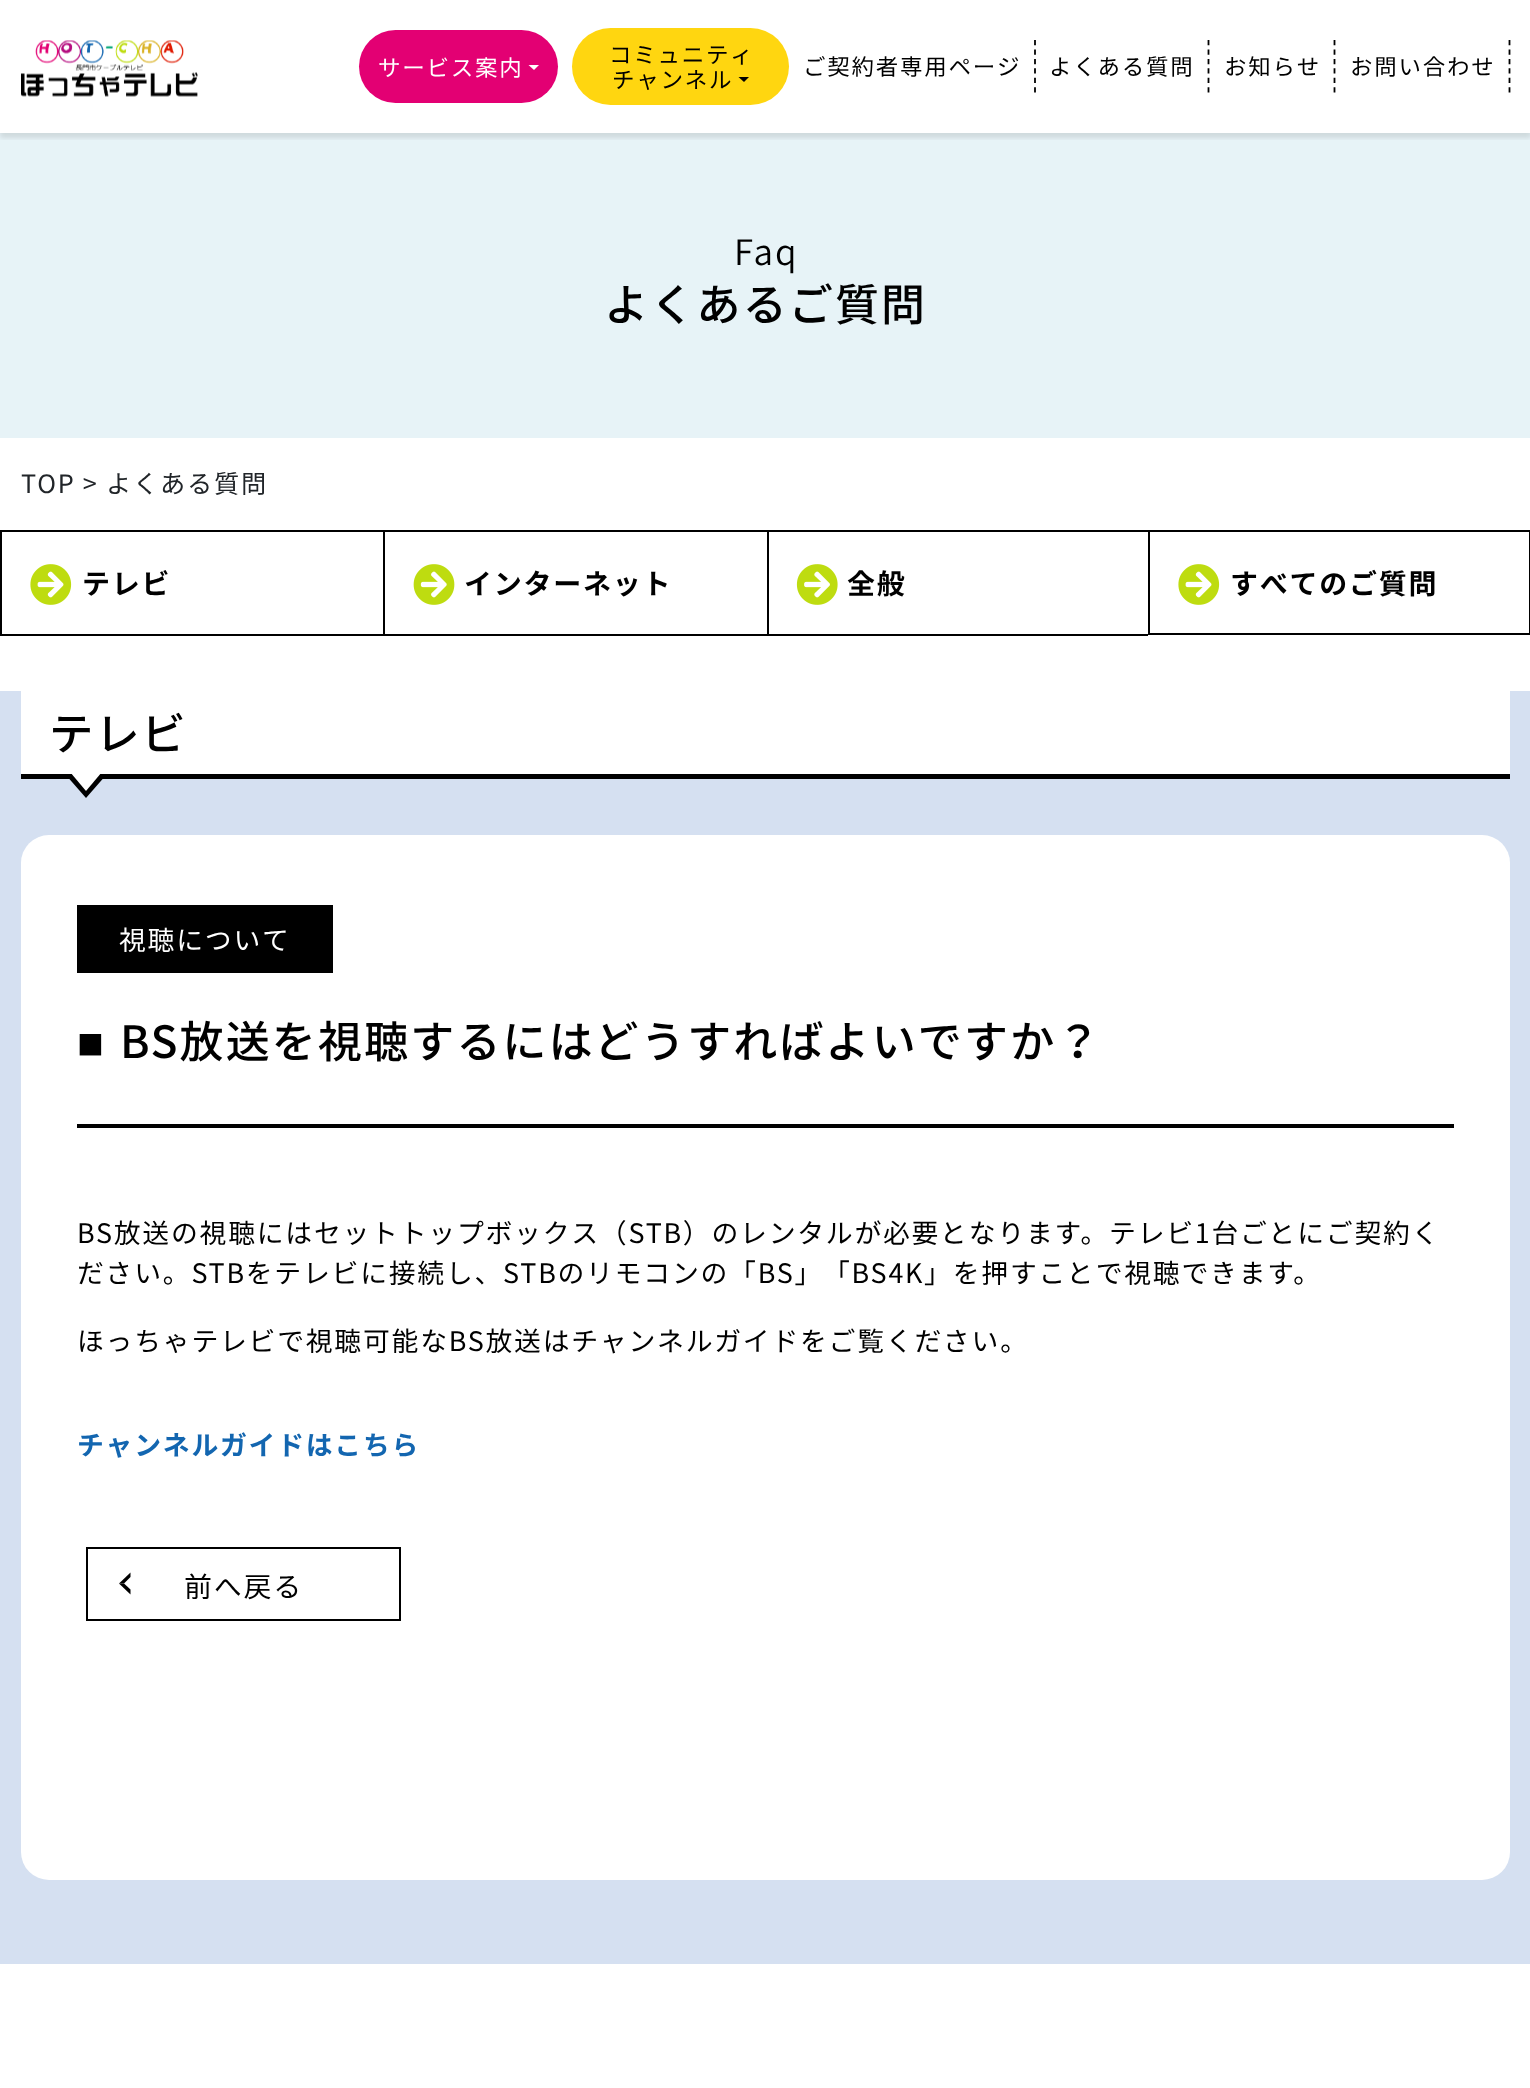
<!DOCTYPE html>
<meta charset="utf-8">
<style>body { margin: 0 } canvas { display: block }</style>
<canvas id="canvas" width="1530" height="2088"></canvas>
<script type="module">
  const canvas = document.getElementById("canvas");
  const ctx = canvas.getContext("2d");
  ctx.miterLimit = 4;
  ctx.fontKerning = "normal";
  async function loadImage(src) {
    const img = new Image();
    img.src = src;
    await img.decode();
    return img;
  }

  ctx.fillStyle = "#ffffff";
  ctx.fillRect(0, 0, 1530, 2088);
  ctx.fillStyle = "#e7f3f7";
  ctx.fillRect(0, 133, 1530, 305);
  ctx.save();
  ctx.beginPath();
  ctx.rect(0, 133, 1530, 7);
  ctx.clip();
  ctx.fillStyle = "rgba(0, 0, 0, 0.1)";
  ctx.filter = "blur(2.5px)";
  ctx.beginPath();
  ctx.rect(0, 5, 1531, 133);
  ctx.fill();
  ctx.filter = "none";
  ctx.restore();
  ctx.drawImage(await loadImage("img1.png"), 21, 40, 177, 57);
  ctx.fillStyle = "#e30073";
  ctx.beginPath();
  ctx.roundRect(359, 30, 199, 73, 36.5);
  ctx.fill();
  ctx.letterSpacing = "1.75px";
  ctx.font = "22.5px Noto Sans JP";
  ctx.fillStyle = "#ffffff";
  ctx.fillText("サービス案内", 378, 76);
  ctx.beginPath();
  ctx.moveTo(528.5, 65);
  ctx.lineTo(539, 65);
  ctx.lineTo(534, 70);
  ctx.closePath();
  ctx.fill();
  ctx.fillStyle = "#ffd610";
  ctx.beginPath();
  ctx.roundRect(572, 28, 217, 77, 38.5);
  ctx.fill();
  ctx.fillStyle = "#000000";
  ctx.fillText("コミュニティ", 609, 63);
  ctx.fillText("チャンネル", 612, 88);
  ctx.beginPath();
  ctx.moveTo(738.5, 77);
  ctx.lineTo(749, 77);
  ctx.lineTo(744, 82);
  ctx.closePath();
  ctx.fill();
  ctx.beginPath();
  ctx.moveTo(1035, 40);
  ctx.lineTo(1035, 93);
  ctx.strokeStyle = "#000000";
  ctx.lineWidth = 1.8;
  ctx.setLineDash([5.25, 4.2]);
  ctx.stroke();
  ctx.fillText("ご契約者専用ページ", 803, 75);
  ctx.fillText("よくある質問", 1049, 75);
  ctx.beginPath();
  ctx.moveTo(1334.5, 40);
  ctx.lineTo(1334.5, 93);
  ctx.stroke();
  ctx.beginPath();
  ctx.moveTo(1208.5, 40);
  ctx.lineTo(1208.5, 93);
  ctx.stroke();
  ctx.fillText("お知らせ", 1224, 75);
  ctx.beginPath();
  ctx.moveTo(1509.5, 40);
  ctx.lineTo(1509.5, 93);
  ctx.stroke();
  ctx.fillText("お問い合わせ", 1350, 75);
  ctx.font = "300 35px Noto Sans JP";
  ctx.fillText("Faq", 734, 265);
  ctx.font = "500 44.4px Noto Sans JP";
  ctx.fillText("よくあるご質問", 604, 321);
  ctx.font = "25.25px Noto Sans JP";
  ctx.fillStyle = "#212529";
  ctx.fillText("TOP > よくある質問", 21, 493);
  ctx.fillStyle = "#000000";
  ctx.fillRect(0, 530, 1148, 2);
  ctx.fillRect(0, 634, 1148, 2);
  ctx.fillRect(0, 530, 2, 105);
  ctx.drawImage(await loadImage("img2.png"), 30, 564, 42, 41);
  ctx.font = "bold 28px Noto Sans JP";
  ctx.fillText("テレビ", 82, 594);
  ctx.fillRect(383, 530, 2, 105);
  ctx.drawImage(await loadImage("img3.png"), 413, 564, 42, 41);
  ctx.fillText("インターネット", 464, 594);
  ctx.fillRect(767, 530, 2, 105);
  ctx.drawImage(await loadImage("img4.png"), 796, 564, 42, 41);
  ctx.fillText("全般", 847, 594);
  ctx.lineWidth = 2;
  ctx.setLineDash([]);
  ctx.strokeRect(1149, 531, 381, 103);
  ctx.drawImage(await loadImage("img2.png"), 1178, 564, 42, 41);
  ctx.fillText("すべてのご質問", 1230, 594);
  ctx.fillStyle = "#d5e0f1";
  ctx.fillRect(0, 691, 1530, 1273);
  ctx.fillStyle = "#ffffff";
  ctx.fillRect(21, 691, 1489, 83);
  ctx.fillStyle = "#000000";
  ctx.fillRect(21, 774, 1489, 5);
  ctx.font = "500 44.4px Noto Sans JP";
  ctx.fillText("テレビ", 49, 750);
  ctx.beginPath();
  ctx.moveTo(65, 774);
  ctx.lineTo(107, 774);
  ctx.lineTo(86, 798);
  ctx.closePath();
  ctx.fill();
  ctx.fillStyle = "#ffffff";
  ctx.beginPath();
  ctx.moveTo(65, 766);
  ctx.lineTo(107, 766);
  ctx.lineTo(86, 791);
  ctx.closePath();
  ctx.fill();
  ctx.beginPath();
  ctx.roundRect(21, 835, 1489, 1045, 28);
  ctx.fill();
  ctx.fillStyle = "#000000";
  ctx.fillRect(77, 905, 256, 68);
  ctx.font = "26.85px Noto Sans JP";
  ctx.fillStyle = "#ffffff";
  ctx.fillText("視聴について", 119, 950);
  ctx.font = "44.4px Liberation Sans";
  ctx.fillStyle = "#000000";
  ctx.fillText("■", 77, 1058);
  ctx.font = "500 44.4px Noto Sans JP";
  ctx.fillText("BS放送を視聴するにはどうすればよいですか？", 120, 1058);
  ctx.fillRect(77, 1124, 1377, 4);
  ctx.font = "26.85px Noto Sans JP";
  ctx.fillText("BS放送の視聴にはセットトップボックス（STB）のレンタルが必要となります。テレビ1台ごとにご契約く", 77, 1243);
  ctx.fillText("ださい。STBをテレビに接続し、STBのリモコンの「BS」「BS4K」を押すことで視聴できます。", 77, 1283);
  ctx.fillText("ほっちゃテレビで視聴可能なBS放送はチャンネルガイドをご覧ください。", 77, 1351);
  ctx.font = "bold 26.85px Noto Sans JP";
  ctx.fillStyle = "#1366b0";
  ctx.fillText("チャンネルガイドはこちら", 77, 1455);
  ctx.strokeRect(87, 1548, 313, 72);
  ctx.fillStyle = "#000000";
  ctx.beginPath();
  ctx.moveTo(130.5, 1594.5);
  ctx.lineTo(119, 1583.5);
  ctx.lineTo(124, 1583.5);
  ctx.lineTo(130.5, 1589.5);
  ctx.closePath();
  ctx.fill();
  ctx.beginPath();
  ctx.moveTo(119, 1583.5);
  ctx.lineTo(130.5, 1572.5);
  ctx.lineTo(130.5, 1577);
  ctx.lineTo(124, 1583.5);
  ctx.closePath();
  ctx.fill();
  ctx.font = "28px Noto Sans JP";
  ctx.fillText("前へ戻る", 184, 1597);
</script>
